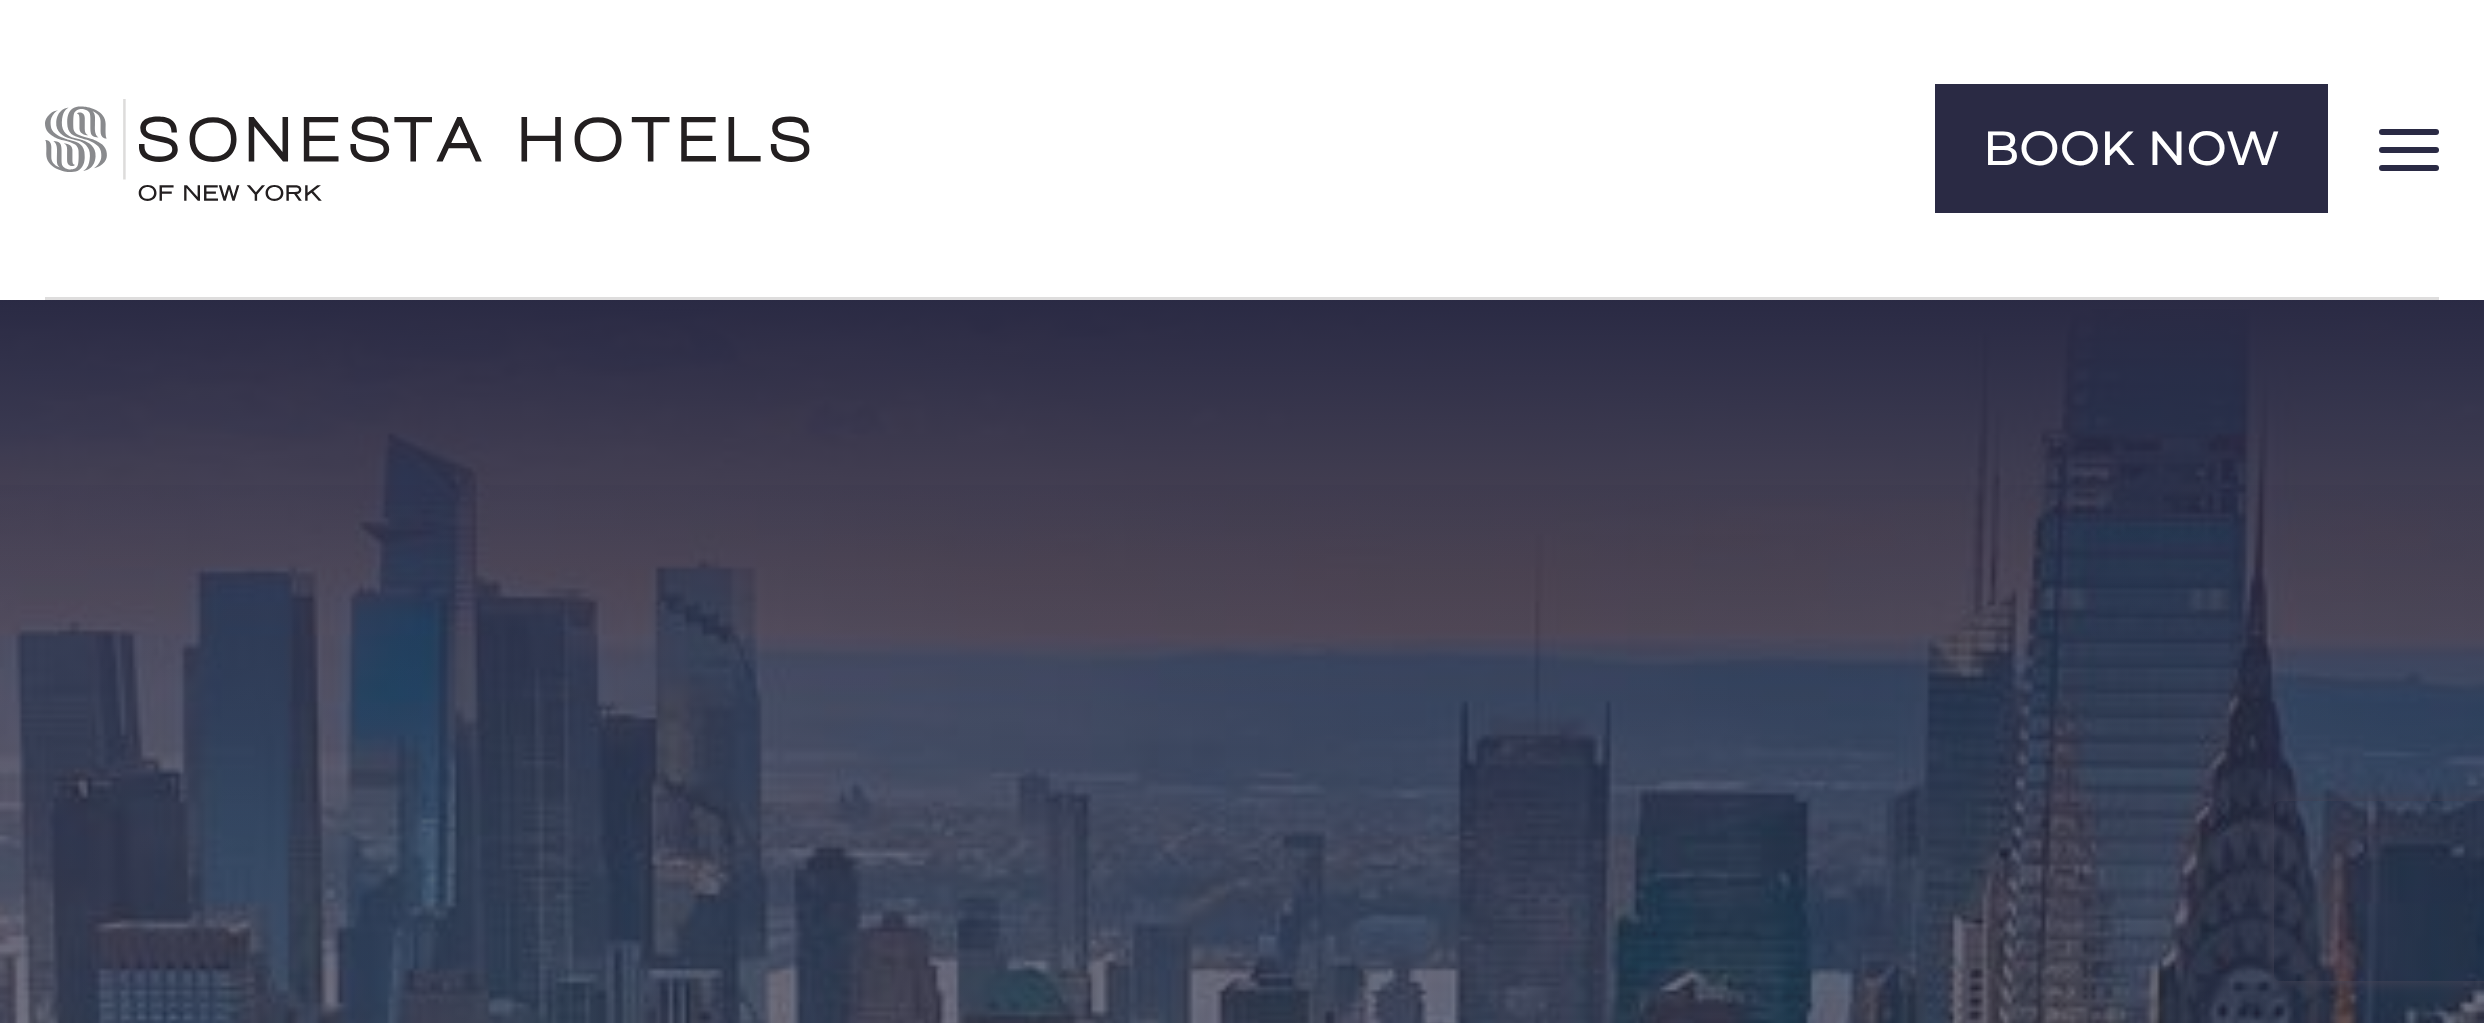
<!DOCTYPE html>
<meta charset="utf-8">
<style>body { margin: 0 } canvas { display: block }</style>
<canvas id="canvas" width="2484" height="1023"></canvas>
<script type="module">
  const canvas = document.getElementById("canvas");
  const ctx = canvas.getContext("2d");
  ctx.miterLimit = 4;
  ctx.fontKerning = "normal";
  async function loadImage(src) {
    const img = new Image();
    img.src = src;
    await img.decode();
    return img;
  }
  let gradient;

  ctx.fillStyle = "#ffffff";
  ctx.fillRect(0, 0, 2484, 1023);
  ctx.fillStyle = "#dedddd";
  ctx.fillRect(45, 297, 2394, 3);
  ctx.drawImage(await loadImage("img1.png"), 45, 99, 765, 102);
  ctx.fillStyle = "#2a2a44";
  ctx.fillRect(1935, 84, 393, 129);
  ctx.font = "500 48px Montserrat";
  ctx.fillStyle = "#ffffff";
  ctx.fillText("BOOK NOW", 1983, 165);
  ctx.fillStyle = "#2a2a44";
  ctx.beginPath();
  ctx.roundRect(2379, 129, 60, 6, 3);
  ctx.fill();
  ctx.beginPath();
  ctx.roundRect(2379, 147, 60, 6, 3);
  ctx.fill();
  ctx.beginPath();
  ctx.roundRect(2379, 165, 60, 6, 3);
  ctx.fill();
  ctx.drawImage(await loadImage("img2.png"), 0, 309, 2484, 714);
  ctx.save();
  ctx.beginPath();
  ctx.moveTo(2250, 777);
  ctx.lineTo(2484, 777);
  ctx.lineTo(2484, 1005);
  ctx.lineTo(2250, 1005);
  ctx.closePath();
  ctx.moveTo(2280, 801);
  ctx.lineTo(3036, 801);
  ctx.bezierCurveTo(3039.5, 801, 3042, 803.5, 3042, 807);
  ctx.lineTo(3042, 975);
  ctx.bezierCurveTo(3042, 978.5, 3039.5, 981, 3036, 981);
  ctx.lineTo(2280, 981);
  ctx.bezierCurveTo(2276.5, 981, 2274, 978.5, 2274, 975);
  ctx.lineTo(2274, 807);
  ctx.bezierCurveTo(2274, 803.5, 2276.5, 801, 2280, 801);
  ctx.closePath();
  ctx.clip("evenodd");
  ctx.fillStyle = "#808080";
  ctx.filter = "blur(7.5px)";
  ctx.beginPath();
  ctx.roundRect(2274, 801, 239, 180, 6);
  ctx.fill();
  ctx.filter = "none";
  ctx.restore();
  gradient = ctx.createLinearGradient(1242, 300, 1242, 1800);
  gradient.addColorStop(0, "#2a2a44");
  gradient.addColorStop(1, "rgba(42, 42, 68, 0)");
  ctx.fillStyle = gradient;
  ctx.fillRect(0, 300, 2484, 723);
  gradient = ctx.createLinearGradient(1242, 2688, 1242, 300);
  gradient.addColorStop(0.05, "#2a2a44");
  gradient.addColorStop(1, "rgba(42, 42, 68, 0)");
  ctx.fillStyle = gradient;
  ctx.fillRect(0, 485, 2484, 538);
</script>
